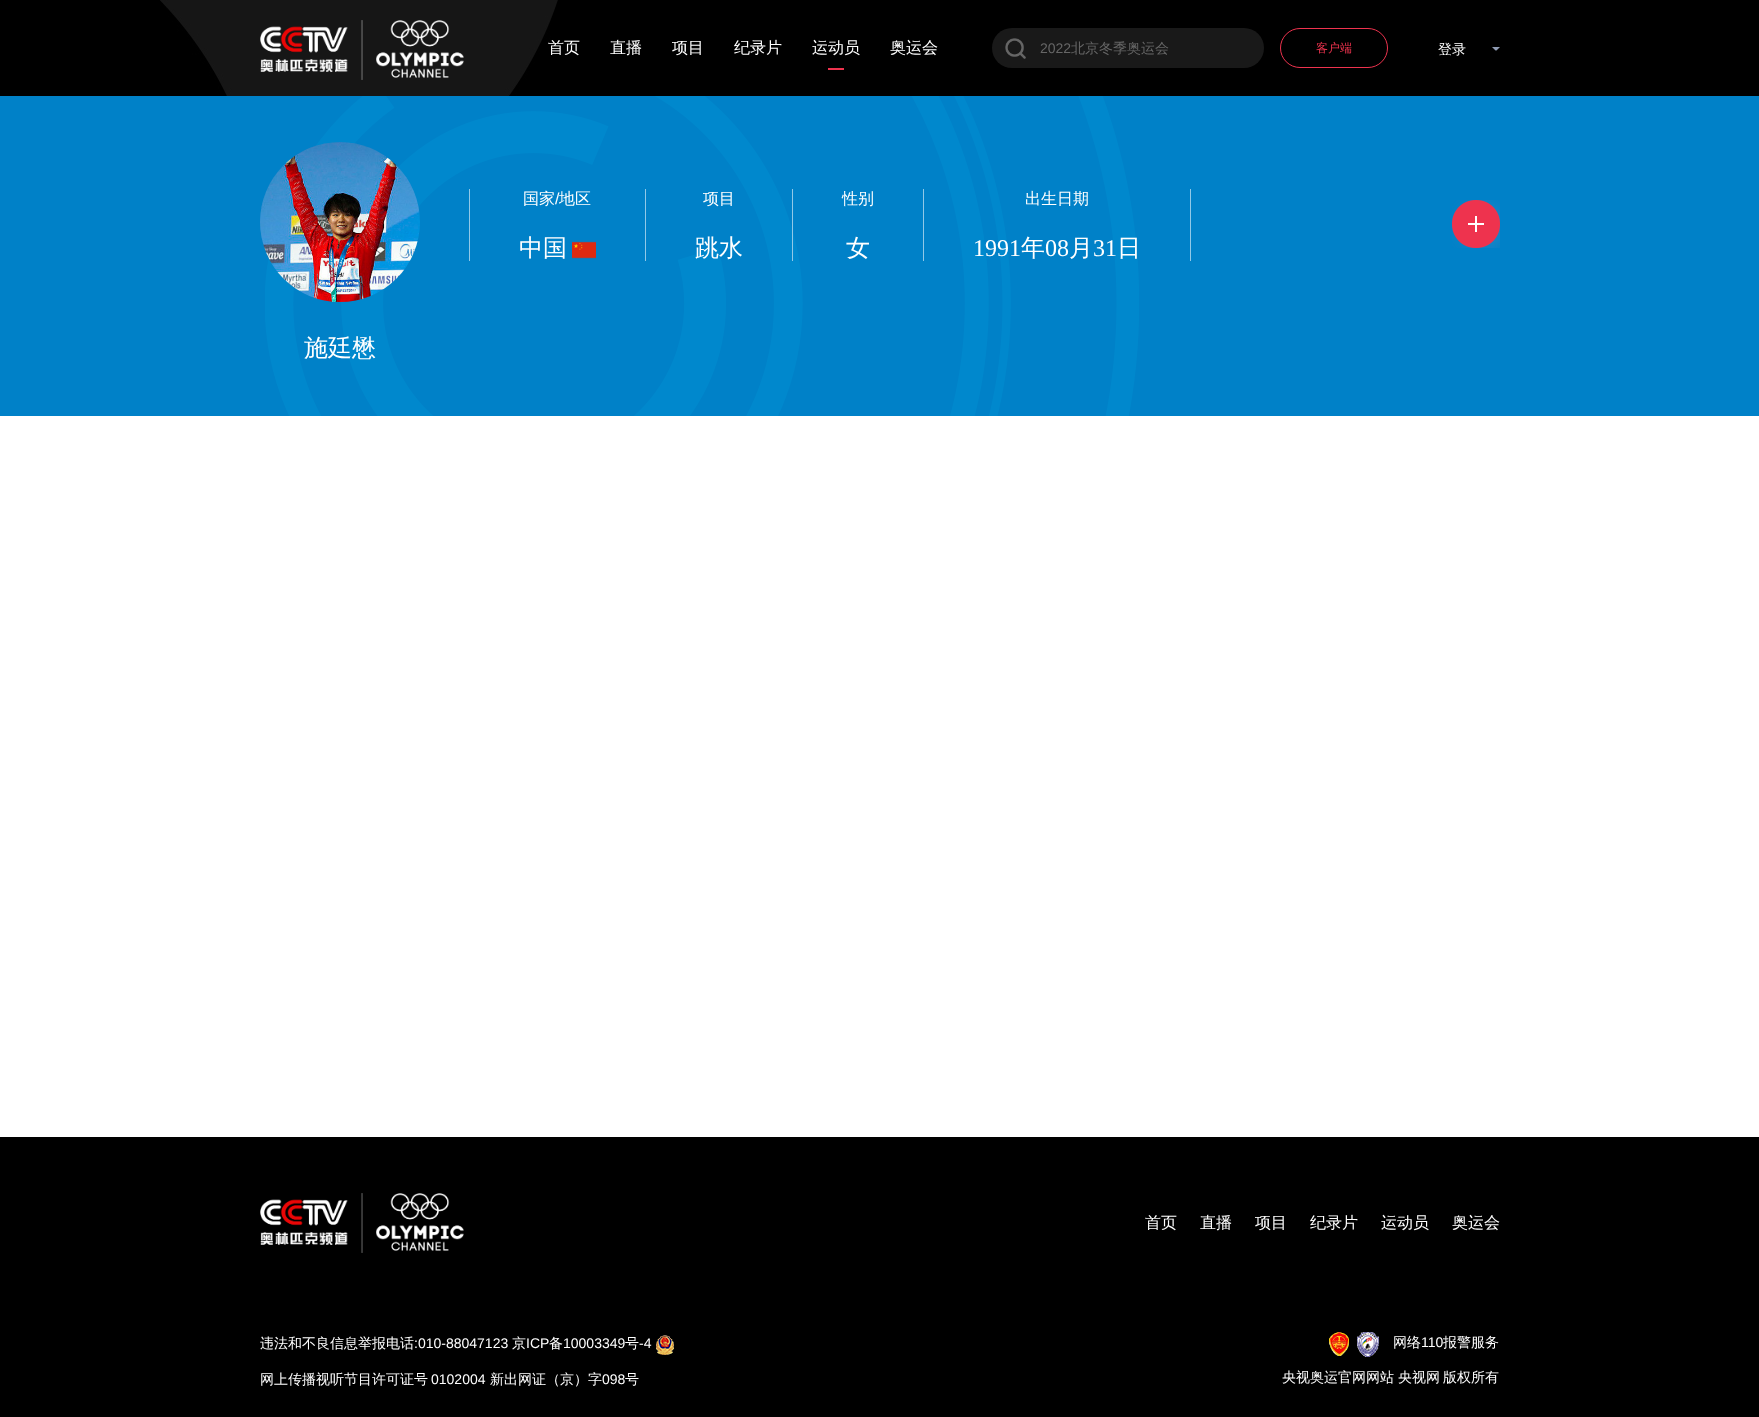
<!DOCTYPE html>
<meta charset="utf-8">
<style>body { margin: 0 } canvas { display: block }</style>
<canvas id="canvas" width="1759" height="1417"></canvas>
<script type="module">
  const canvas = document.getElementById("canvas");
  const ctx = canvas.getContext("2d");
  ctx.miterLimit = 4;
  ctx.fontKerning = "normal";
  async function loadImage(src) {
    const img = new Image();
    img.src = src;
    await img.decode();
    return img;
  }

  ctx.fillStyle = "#ffffff";
  ctx.fillRect(0, 0, 1759, 1417);
  ctx.fillStyle = "#000000";
  ctx.fillRect(0, 0, 1759, 96);
  ctx.drawImage(await loadImage("img1.png"), 160, 0, 398, 96);
  ctx.drawImage(await loadImage("img2.png"), 260, 20, 204, 60);
  ctx.font = "500 16px WenQuanYi Zen Hei";
  ctx.fillStyle = "#ffffff";
  ctx.fillText("首页", 548, 53);
  ctx.fillText("直播", 610, 53);
  ctx.fillText("项目", 672, 53);
  ctx.fillText("纪录片", 734, 53);
  ctx.fillStyle = "#ee334e";
  ctx.fillRect(828, 68, 16, 2);
  ctx.fillStyle = "#ffffff";
  ctx.fillText("运动员", 812, 53);
  ctx.fillText("奥运会", 890, 53);
  ctx.fillStyle = "#191919";
  ctx.beginPath();
  ctx.roundRect(992, 28, 272, 40, 20);
  ctx.fill();
  ctx.drawImage(await loadImage("img3.png"), 1005, 38, 21, 21);
  ctx.font = "14px Liberation Sans";
  ctx.fillStyle = "#666666";
  ctx.fillText("2022", 1040, 53);
  ctx.font = "500 14px WenQuanYi Zen Hei";
  ctx.fillText("北京冬季奥运会", 1071, 53);
  ctx.beginPath();
  ctx.roundRect(1280.5, 28.5, 107, 39, 19.5);
  ctx.strokeStyle = "#ee334e";
  ctx.stroke();
  ctx.font = "500 12px WenQuanYi Zen Hei";
  ctx.fillStyle = "#ee334e";
  ctx.fillText("客户端", 1316, 52);
  ctx.drawImage(await loadImage("img4.png"), 1492, 47, 8, 4);
  ctx.font = "500 14px WenQuanYi Zen Hei";
  ctx.fillStyle = "#ffffff";
  ctx.fillText("登录", 1438, 54);
  ctx.fillStyle = "#0081c8";
  ctx.fillRect(0, 96, 1759, 320);
  ctx.drawImage(await loadImage("img5.png"), 265, 96, 874, 320);
  ctx.fillStyle = "#91c8e7";
  ctx.fillRect(469, 189, 1, 72);
  ctx.font = "500 16px WenQuanYi Zen Hei";
  ctx.fillStyle = "#ffffff";
  ctx.fillText("国家", 523, 204);
  ctx.font = "16px Liberation Sans";
  ctx.fillText("/", 555, 204);
  ctx.font = "500 16px WenQuanYi Zen Hei";
  ctx.fillText("地区", 559, 204);
  ctx.font = "500 24px WenQuanYi Zen Hei";
  ctx.fillText("中国", 519, 256);
  ctx.drawImage(await loadImage("img6.png"), 572, 241, 24, 18);
  ctx.fillStyle = "#91c8e7";
  ctx.fillRect(645, 189, 1, 72);
  ctx.font = "500 16px WenQuanYi Zen Hei";
  ctx.fillStyle = "#ffffff";
  ctx.fillText("项目", 703, 204);
  ctx.font = "500 24px WenQuanYi Zen Hei";
  ctx.fillText("跳水", 695, 256);
  ctx.fillStyle = "#91c8e7";
  ctx.fillRect(792, 189, 1, 72);
  ctx.font = "500 16px WenQuanYi Zen Hei";
  ctx.fillStyle = "#ffffff";
  ctx.fillText("性别", 842, 204);
  ctx.font = "500 24px WenQuanYi Zen Hei";
  ctx.fillText("女", 846, 256);
  ctx.fillStyle = "#91c8e7";
  ctx.fillRect(923, 189, 1, 72);
  ctx.font = "500 16px WenQuanYi Zen Hei";
  ctx.fillStyle = "#ffffff";
  ctx.fillText("出生日期", 1025, 204);
  ctx.font = "24px Liberation Serif";
  ctx.fillText("1991", 973, 256);
  ctx.font = "500 24px WenQuanYi Zen Hei";
  ctx.fillText("年", 1021, 256);
  ctx.font = "24px Liberation Serif";
  ctx.fillText("08", 1045, 256);
  ctx.font = "500 24px WenQuanYi Zen Hei";
  ctx.fillText("月", 1069, 256);
  ctx.font = "24px Liberation Serif";
  ctx.fillText("31", 1093, 256);
  ctx.font = "500 24px WenQuanYi Zen Hei";
  ctx.fillText("日", 1117, 256);
  ctx.fillStyle = "#91c8e7";
  ctx.fillRect(1190, 189, 1, 72);
  ctx.drawImage(await loadImage("img7.png"), 1452, 200, 48, 48);
  ctx.drawImage(await loadImage("img8.png"), 260, 142, 160, 160);
  ctx.fillStyle = "#ffffff";
  ctx.fillText("施廷懋", 304, 356);
  ctx.fillStyle = "#000000";
  ctx.fillRect(0, 1137, 1759, 280);
  ctx.drawImage(await loadImage("img9.png"), 260, 1193, 204, 60);
  ctx.font = "500 16px WenQuanYi Zen Hei";
  ctx.fillStyle = "#ffffff";
  ctx.fillText("首页", 1145, 1228);
  ctx.fillText("直播", 1200, 1228);
  ctx.fillText("项目", 1255, 1228);
  ctx.fillText("纪录片", 1310, 1228);
  ctx.fillText("运动员", 1381, 1228);
  ctx.fillText("奥运会", 1452, 1228);
  ctx.font = "500 14px WenQuanYi Zen Hei";
  ctx.fillText("违法和不良信息举报电话", 260, 1348);
  ctx.font = "14px Liberation Sans";
  ctx.fillText(":010-88047123", 414, 1348);
  ctx.font = "500 14px WenQuanYi Zen Hei";
  ctx.fillText("京", 512, 1348);
  ctx.font = "14px Liberation Sans";
  ctx.fillText("ICP", 526, 1348);
  ctx.font = "500 14px WenQuanYi Zen Hei";
  ctx.fillText("备", 549, 1348);
  ctx.font = "14px Liberation Sans";
  ctx.fillText("10003349", 563, 1348);
  ctx.font = "500 14px WenQuanYi Zen Hei";
  ctx.fillText("号", 625, 1348);
  ctx.font = "14px Liberation Sans";
  ctx.fillText("-4", 639, 1348);
  ctx.drawImage(await loadImage("img10.png"), 656, 1335, 18, 20);
  ctx.font = "500 14px WenQuanYi Zen Hei";
  ctx.fillText("网上传播视听节目许可证号", 260, 1384);
  ctx.font = "14px Liberation Sans";
  ctx.fillText("0102004", 431, 1384);
  ctx.font = "500 14px WenQuanYi Zen Hei";
  ctx.fillText("新出网证（京）字", 490, 1384);
  ctx.font = "14px Liberation Sans";
  ctx.fillText("098", 602, 1384);
  ctx.font = "500 14px WenQuanYi Zen Hei";
  ctx.fillText("号", 625, 1384);
  ctx.drawImage(await loadImage("img11.png"), 1329, 1332, 20, 24);
  ctx.drawImage(await loadImage("img12.png"), 1357, 1332, 22, 25);
  ctx.fillText("网络", 1393, 1347);
  ctx.font = "14px Liberation Sans";
  ctx.fillText("110", 1421, 1347);
  ctx.font = "500 14px WenQuanYi Zen Hei";
  ctx.fillText("报警服务", 1443, 1347);
  ctx.fillText("央视奥运官网网站", 1282, 1382);
  ctx.fillText("央视网", 1398, 1382);
  ctx.fillText("版权所有", 1443, 1382);
</script>
